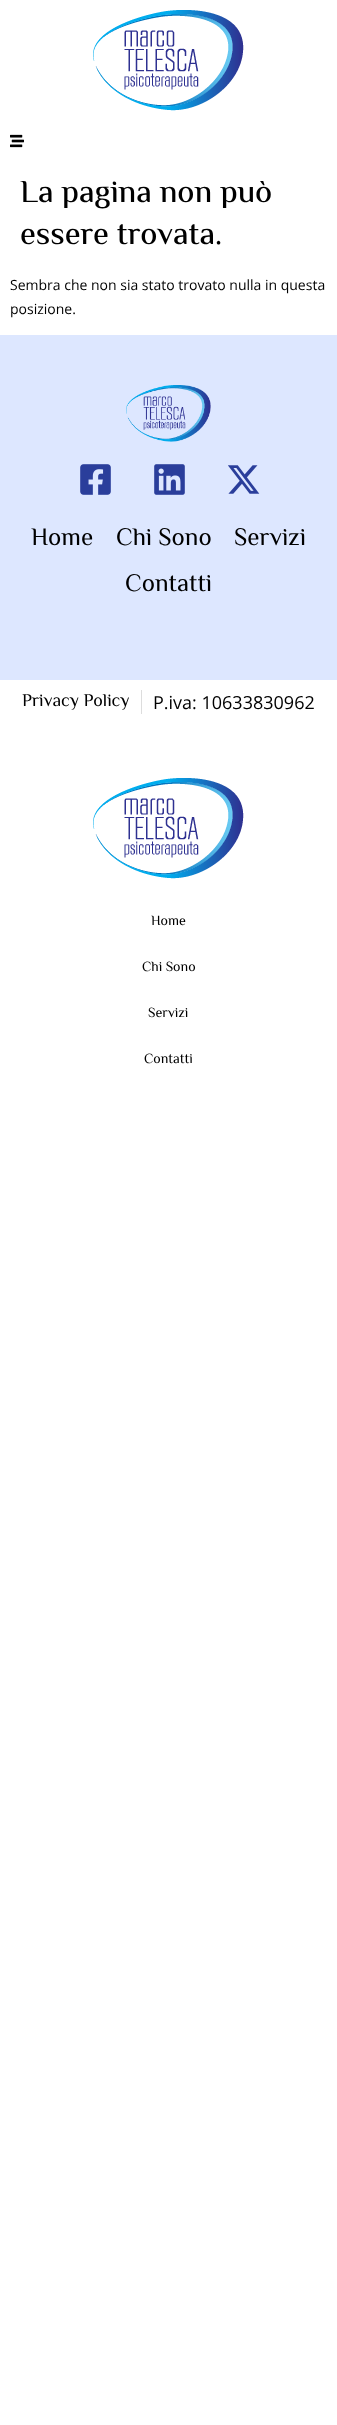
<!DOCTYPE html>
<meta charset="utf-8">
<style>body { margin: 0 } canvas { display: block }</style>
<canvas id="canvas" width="337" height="2425"></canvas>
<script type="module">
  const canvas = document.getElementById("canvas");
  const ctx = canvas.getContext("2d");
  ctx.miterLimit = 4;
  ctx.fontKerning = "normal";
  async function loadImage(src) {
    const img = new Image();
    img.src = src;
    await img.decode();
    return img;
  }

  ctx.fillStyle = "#ffffff";
  ctx.fillRect(0, 0, 337, 2425);
  ctx.drawImage(await loadImage("img1.png"), 93, 10, 151, 101);
  ctx.drawImage(await loadImage("img2.png"), 10, 134, 14, 14);
  ctx.font = "500 32px El Messiri";
  ctx.fillStyle = "#000000";
  ctx.fillText("La pagina non può", 20, 202);
  ctx.fillText("essere trovata.", 20, 244);
  ctx.font = "14px Open Sans";
  ctx.fillText("Sembra che non sia stato trovato nulla in questa", 10, 290);
  ctx.fillText("posizione.", 10, 314);
  ctx.fillStyle = "#dde7ff";
  ctx.fillRect(0, 335, 337, 345);
  ctx.drawImage(await loadImage("img3.png"), 126, 385, 85, 57);
  ctx.drawImage(await loadImage("img4.png"), 80, 464, 31, 31);
  ctx.drawImage(await loadImage("img5.png"), 154, 464, 31, 31);
  ctx.drawImage(await loadImage("img6.png"), 228, 465, 32, 29);
  ctx.font = "25px El Messiri";
  ctx.fillStyle = "#000000";
  ctx.fillText("Home", 31, 545);
  ctx.fillText("Chi Sono", 116, 545);
  ctx.fillText("Servizi", 234, 545);
  ctx.fillText("Contatti", 125, 591);
  ctx.font = "18px El Messiri";
  ctx.fillText("Privacy Policy", 22, 706);
  ctx.fillStyle = "#dddddd";
  ctx.fillRect(141, 690, 1, 24);
  ctx.font = "18px Open Sans";
  ctx.fillStyle = "#000000";
  ctx.fillText("P.iva: 10633830962", 153, 709);
  ctx.drawImage(await loadImage("img1.png"), 93, 778, 151, 101);
  ctx.font = "14px El Messiri";
  ctx.fillText("Home", 151, 925);
  ctx.fillText("Chi Sono", 142, 971);
  ctx.fillText("Servizi", 148, 1017);
  ctx.fillText("Contatti", 144, 1063);
</script>
